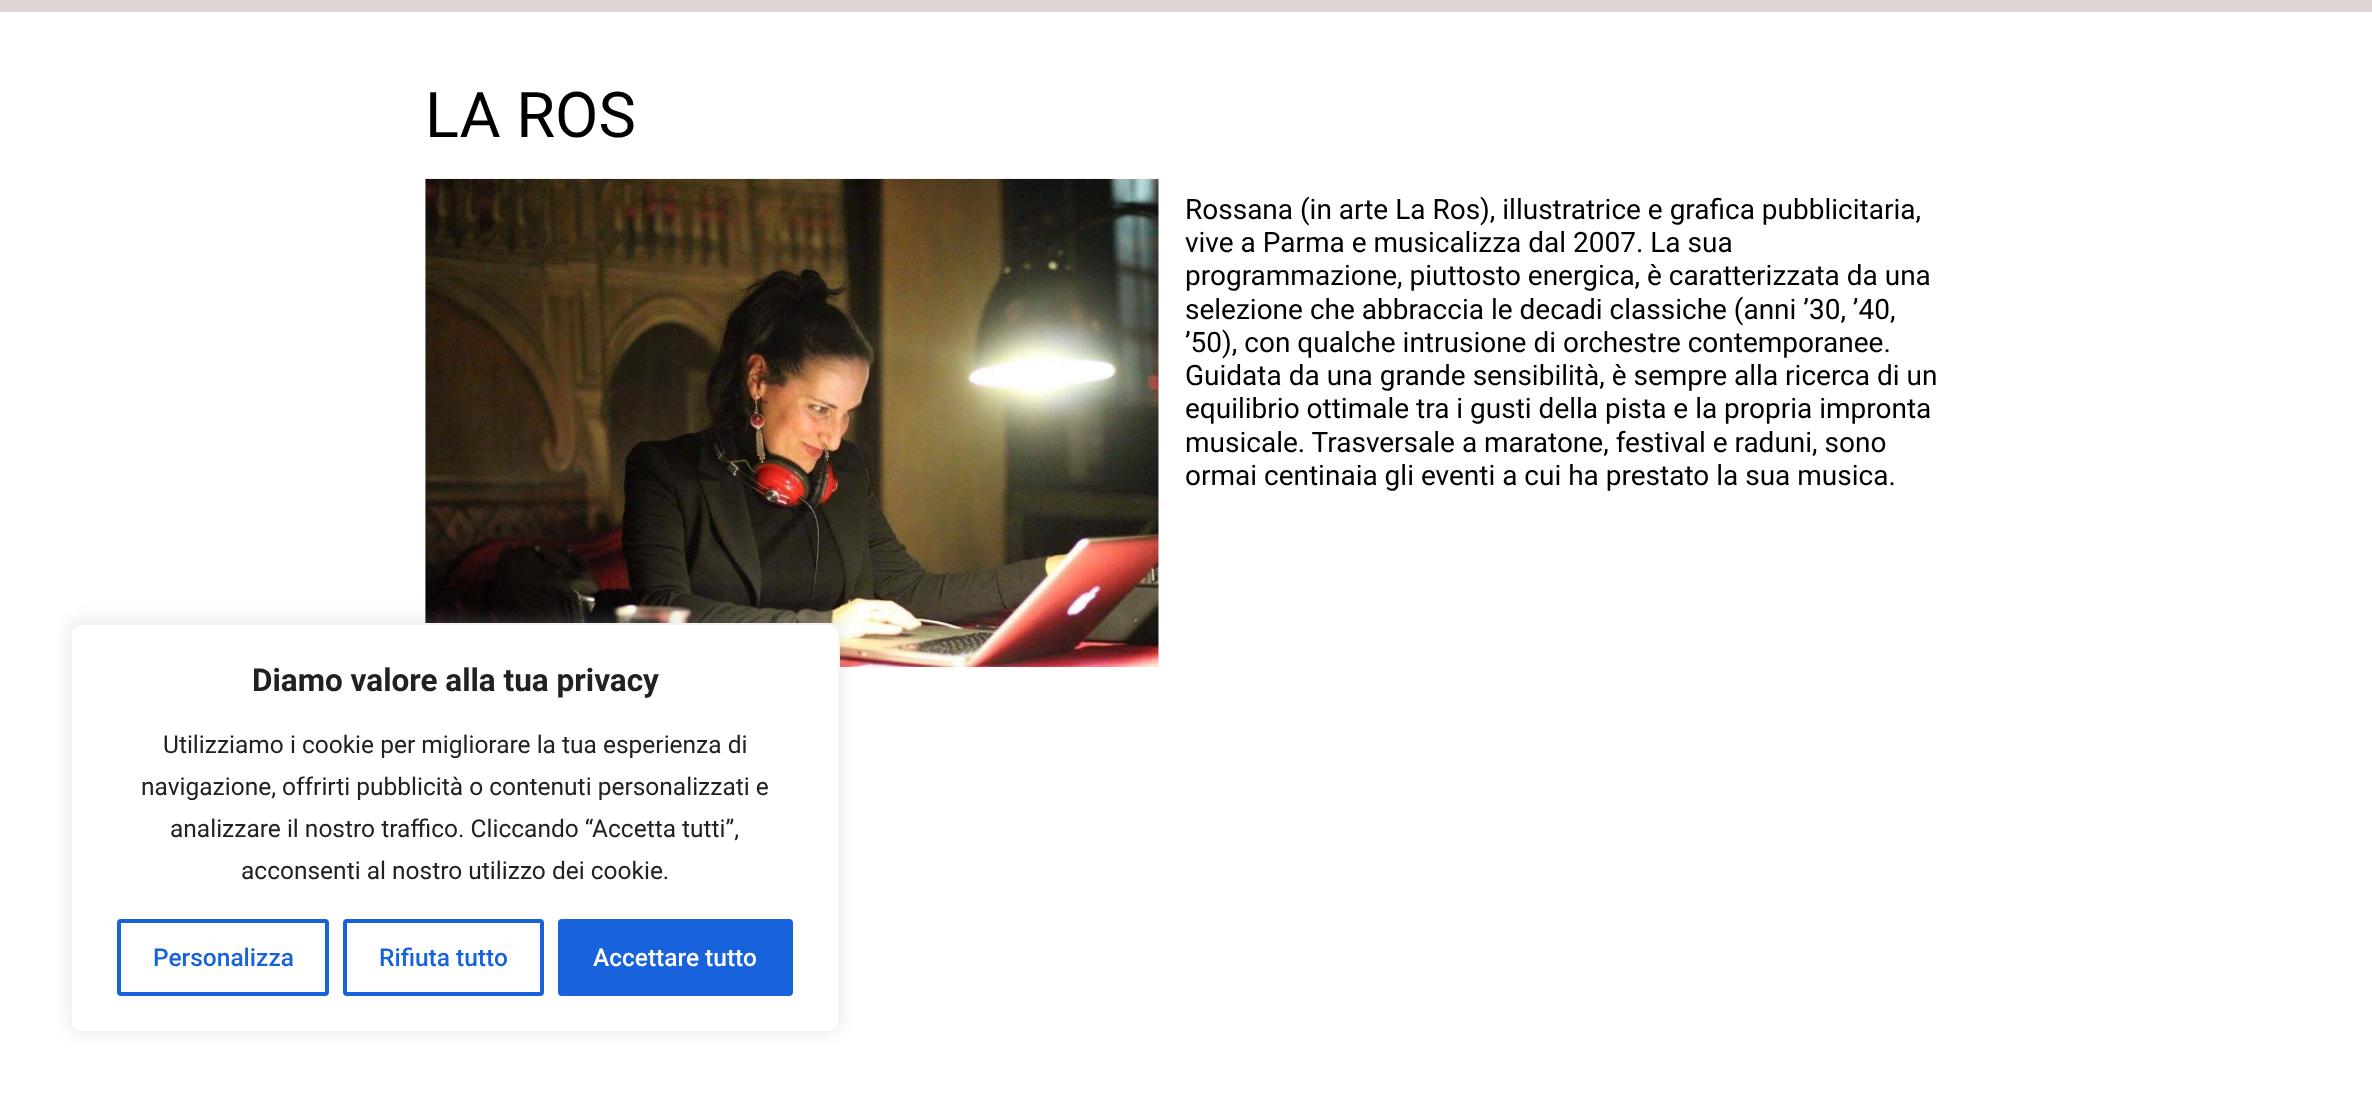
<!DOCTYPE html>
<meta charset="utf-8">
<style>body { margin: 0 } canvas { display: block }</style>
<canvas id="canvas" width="2372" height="1102"></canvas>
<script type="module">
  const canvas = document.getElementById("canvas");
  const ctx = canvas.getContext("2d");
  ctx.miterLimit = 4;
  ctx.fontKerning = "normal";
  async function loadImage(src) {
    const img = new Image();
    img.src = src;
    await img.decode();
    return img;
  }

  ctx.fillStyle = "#ffffff";
  ctx.fillRect(0, 0, 2372, 1102);
  ctx.fillStyle = "#ded5d5";
  ctx.fillRect(0, 0, 2372, 12);
  ctx.font = "63px Roboto";
  ctx.fillStyle = "#000000";
  ctx.fillText("LA ROS", 425, 137);
  ctx.drawImage(await loadImage("img1.png"), 425, 178, 734, 489);
  ctx.font = "28px Roboto";
  ctx.fillText("Rossana (in arte La Ros), illustratrice e grafica pubblicitaria,", 1185, 219);
  ctx.fillText("vive a Parma e musicalizza dal 2007. La sua", 1185, 252);
  ctx.fillText("programmazione, piuttosto energica, è caratterizzata da una", 1185, 285);
  ctx.fillText("selezione che abbraccia le decadi classiche (anni ’30, ’40,", 1185, 319);
  ctx.fillText("’50), con qualche intrusione di orchestre contemporanee.", 1185, 352);
  ctx.fillText("Guidata da una grande sensibilità, è sempre alla ricerca di un", 1185, 385);
  ctx.fillText("equilibrio ottimale tra i gusti della pista e la propria impronta", 1185, 418);
  ctx.fillText("musicale. Trasversale a maratone, festival e raduni, sono", 1185, 452);
  ctx.fillText("ormai centinaia gli eventi a cui ha prestato la sua musica.", 1185, 485);
  ctx.fillStyle = "rgba(172, 171, 171, 0.3)";
  ctx.filter = "blur(9px)";
  ctx.beginPath();
  ctx.roundRect(70, 621, 770, 410, 11);
  ctx.fill();
  ctx.filter = "none";
  ctx.fillStyle = "#ffffff";
  ctx.beginPath();
  ctx.roundRect(71, 624, 768, 408, 10);
  ctx.fill();
  ctx.strokeStyle = "#f4f4f4";
  ctx.lineWidth = 2;
  ctx.stroke();
  ctx.font = "bold 31.5px Roboto";
  ctx.fillStyle = "#212121";
  ctx.fillText("Diamo valore alla tua privacy", 252, 691);
  ctx.font = "24.5px Roboto";
  ctx.fillText("Utilizziamo i cookie per migliorare la tua esperienza di", 163, 753);
  ctx.fillText("navigazione, offrirti pubblicità o contenuti personalizzati e", 141, 795);
  ctx.fillText("analizzare il nostro traffico. Cliccando “Accetta tutti”,", 170, 837);
  ctx.fillText("acconsenti al nostro utilizzo dei cookie.", 241, 879);
  ctx.beginPath();
  ctx.roundRect(119, 921, 208, 73, 2);
  ctx.strokeStyle = "#1863dc";
  ctx.lineWidth = 4;
  ctx.stroke();
  ctx.font = "500 24.5px Roboto";
  ctx.fillStyle = "#1863dc";
  ctx.fillText("Personalizza", 153, 966);
  ctx.beginPath();
  ctx.roundRect(345, 921, 197, 73, 2);
  ctx.stroke();
  ctx.fillText("Rifiuta tutto", 379, 966);
  ctx.beginPath();
  ctx.roundRect(560, 921, 231, 73, 2);
  ctx.fill();
  ctx.stroke();
  ctx.fillStyle = "#ffffff";
  ctx.fillText("Accettare tutto", 593, 966);
</script>
